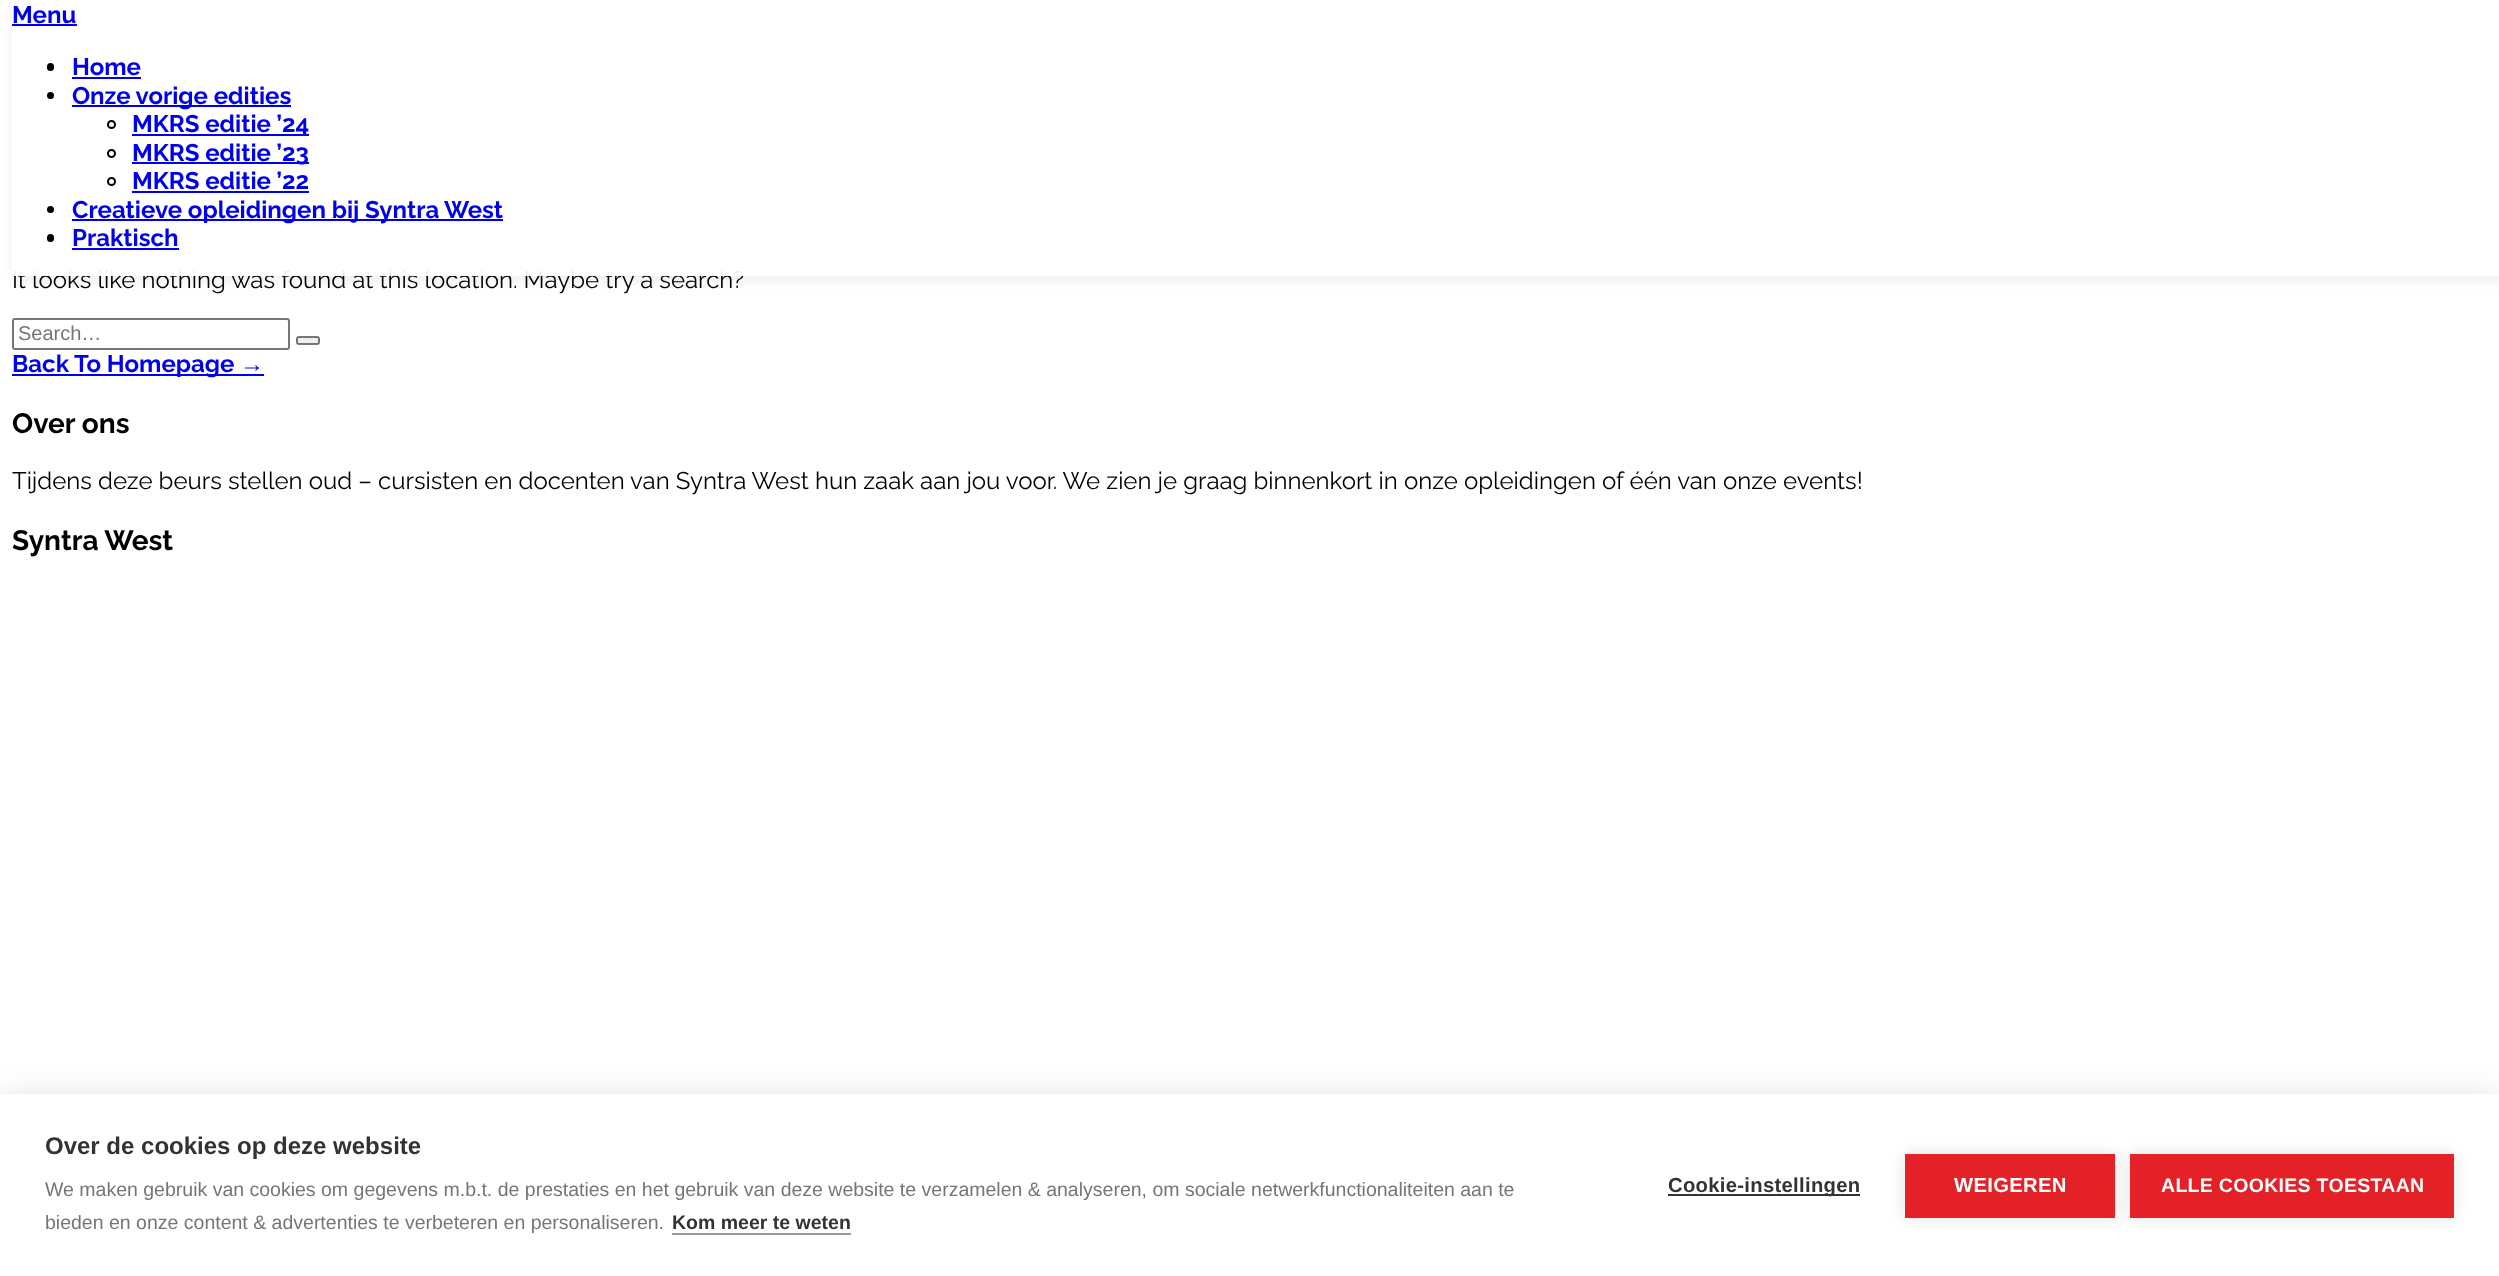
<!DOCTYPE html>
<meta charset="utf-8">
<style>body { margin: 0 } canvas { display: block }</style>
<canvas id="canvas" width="2499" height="1276"></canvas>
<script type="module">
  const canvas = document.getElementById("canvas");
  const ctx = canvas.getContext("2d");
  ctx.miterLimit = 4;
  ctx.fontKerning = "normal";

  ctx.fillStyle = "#ffffff";
  ctx.fillRect(0, 0, 2499, 1276);
  ctx.save();
  ctx.beginPath();
  ctx.moveTo(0, 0);
  ctx.lineTo(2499, 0);
  ctx.lineTo(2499, 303);
  ctx.lineTo(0, 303);
  ctx.closePath();
  ctx.moveTo(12, 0);
  ctx.lineTo(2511, 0);
  ctx.lineTo(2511, 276);
  ctx.lineTo(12, 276);
  ctx.closePath();
  ctx.clip("evenodd");
  ctx.fillStyle = "rgba(168, 166, 166, 0.23)";
  ctx.filter = "blur(7.5px)";
  ctx.beginPath();
  ctx.rect(15, 3, 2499, 276);
  ctx.fill();
  ctx.filter = "none";
  ctx.restore();
  ctx.font = "24px Raleway";
  ctx.fillStyle = "#000000";
  ctx.fillText("It looks like nothing was found at this location. Maybe try a search?", 12, 288);
  ctx.fillStyle = "rgba(255, 255, 255, 0.93)";
  ctx.fillRect(14, 270, 730, 6);
  ctx.font = "bold 24px Raleway";
  ctx.fillStyle = "#0000ee";
  ctx.fillText("Menu", 12, 23);
  ctx.fillRect(12, 24, 65, 2);
  ctx.fillStyle = "#000000";
  ctx.beginPath();
  ctx.roundRect(47, 63, 7, 8, 3.5);
  ctx.fill();
  ctx.fillStyle = "#0000ee";
  ctx.fillText("Home", 72, 75);
  ctx.fillRect(72, 77, 69, 2);
  ctx.fillStyle = "#000000";
  ctx.beginPath();
  ctx.arc(50.5, 95.5, 3.5, 0, Math.PI * 2);
  ctx.fill();
  ctx.fillStyle = "#0000ee";
  ctx.fillRect(72, 105, 219, 2);
  ctx.fillText("Onze vorige edities", 72, 104);
  ctx.beginPath();
  ctx.arc(111.5, 124.5, 3.5, 0, Math.PI * 2);
  ctx.strokeStyle = "#000000";
  ctx.lineWidth = 2;
  ctx.stroke();
  ctx.fillRect(132, 134, 177, 2);
  ctx.fillText("MKRS editie ’24", 132, 132);
  ctx.beginPath();
  ctx.arc(111.5, 153.5, 3.5, 0, Math.PI * 2);
  ctx.stroke();
  ctx.fillRect(132, 162, 177, 2);
  ctx.fillText("MKRS editie ’23", 132, 161);
  ctx.beginPath();
  ctx.arc(111.5, 181.5, 3.5, 0, Math.PI * 2);
  ctx.stroke();
  ctx.fillText("MKRS editie ’22", 132, 189);
  ctx.fillRect(132, 191, 177, 2);
  ctx.fillStyle = "#000000";
  ctx.beginPath();
  ctx.arc(50.5, 209.5, 3.5, 0, Math.PI * 2);
  ctx.fill();
  ctx.fillStyle = "#0000ee";
  ctx.fillRect(72, 219, 431, 2);
  ctx.fillText("Creatieve opleidingen bij Syntra West", 72, 218);
  ctx.fillStyle = "#000000";
  ctx.beginPath();
  ctx.roundRect(47, 234, 7, 8, 3.5);
  ctx.fill();
  ctx.fillStyle = "#0000ee";
  ctx.fillText("Praktisch", 72, 246);
  ctx.fillRect(72, 248, 107, 2);
  ctx.beginPath();
  ctx.roundRect(13, 319, 276, 30, 2);
  ctx.strokeStyle = "#767676";
  ctx.stroke();
  ctx.font = "20px Liberation Sans";
  ctx.fillStyle = "#757575";
  ctx.fillText("Search…", 18, 340);
  ctx.fillStyle = "#efefef";
  ctx.beginPath();
  ctx.roundRect(297, 337, 22, 7, 2);
  ctx.fill();
  ctx.stroke();
  ctx.fillStyle = "#0000ee";
  ctx.fillRect(12, 374, 252, 2);
  ctx.font = "bold 24px Raleway";
  ctx.fillText("Back To Homepage", 12, 372);
  ctx.font = "bold 24px Liberation Sans";
  ctx.fillText("→", 240, 372);
  ctx.font = "bold 28px Raleway";
  ctx.fillStyle = "#000000";
  ctx.fillText("Over ons", 12, 433);
  ctx.font = "24px Raleway";
  ctx.fillText("Tijdens deze beurs stellen oud – cursisten en docenten van Syntra West hun zaak aan jou voor. We zien je graag binnenkort in onze opleidingen of één van onze events!", 12, 489);
  ctx.font = "bold 28px Raleway";
  ctx.fillText("Syntra West", 12, 550);
  ctx.fillStyle = "rgba(0, 0, 0, 0.1)";
  ctx.filter = "blur(15px)";
  ctx.beginPath();
  ctx.rect(0, 1094, 2499, 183);
  ctx.fill();
  ctx.filter = "none";
  ctx.fillStyle = "#ffffff";
  ctx.fillRect(0, 1094, 2499, 182);
  ctx.font = "bold 24px Liberation Sans";
  ctx.fillStyle = "#333333";
  ctx.fillText("Over de cookies op deze website", 45, 1154);
  ctx.font = "19.5px Liberation Sans";
  ctx.fillStyle = "#757575";
  ctx.fillText("We maken gebruik van cookies om gegevens m.b.t. de prestaties en het gebruik van deze website te verzamelen & analyseren, om sociale netwerkfunctionaliteiten aan te", 45, 1196);
  ctx.fillText("bieden en onze content & advertenties te verbeteren en personaliseren.", 45, 1229);
  ctx.font = "bold 19.5px Liberation Sans";
  ctx.fillStyle = "#333333";
  ctx.fillText("Kom meer te weten", 672, 1229);
  ctx.fillStyle = "#999999";
  ctx.fillRect(672, 1233, 179, 2);
  ctx.fillStyle = "#333333";
  ctx.fillRect(1668, 1194, 192, 2);
  ctx.letterSpacing = "0.3px";
  ctx.font = "bold 20.25px Liberation Sans";
  ctx.fillText("Cookie-instellingen", 1668, 1192);
  ctx.fillStyle = "rgba(0, 0, 0, 0.12)";
  ctx.filter = "blur(7.5px)";
  ctx.beginPath();
  ctx.rect(1905, 1154, 210, 64);
  ctx.fill();
  ctx.filter = "none";
  ctx.fillStyle = "#e42127";
  ctx.fillRect(1905, 1154, 210, 64);
  ctx.fillStyle = "#ffffff";
  ctx.fillText("WEIGEREN", 1954, 1192);
  ctx.fillStyle = "rgba(0, 0, 0, 0.12)";
  ctx.filter = "blur(7.5px)";
  ctx.beginPath();
  ctx.rect(2130, 1154, 324, 64);
  ctx.fill();
  ctx.filter = "none";
  ctx.fillStyle = "#e42127";
  ctx.fillRect(2130, 1154, 324, 64);
  ctx.font = "bold 19.5px Liberation Sans";
  ctx.fillStyle = "#ffffff";
  ctx.fillText("ALLE COOKIES TOESTAAN", 2161, 1192);
</script>
